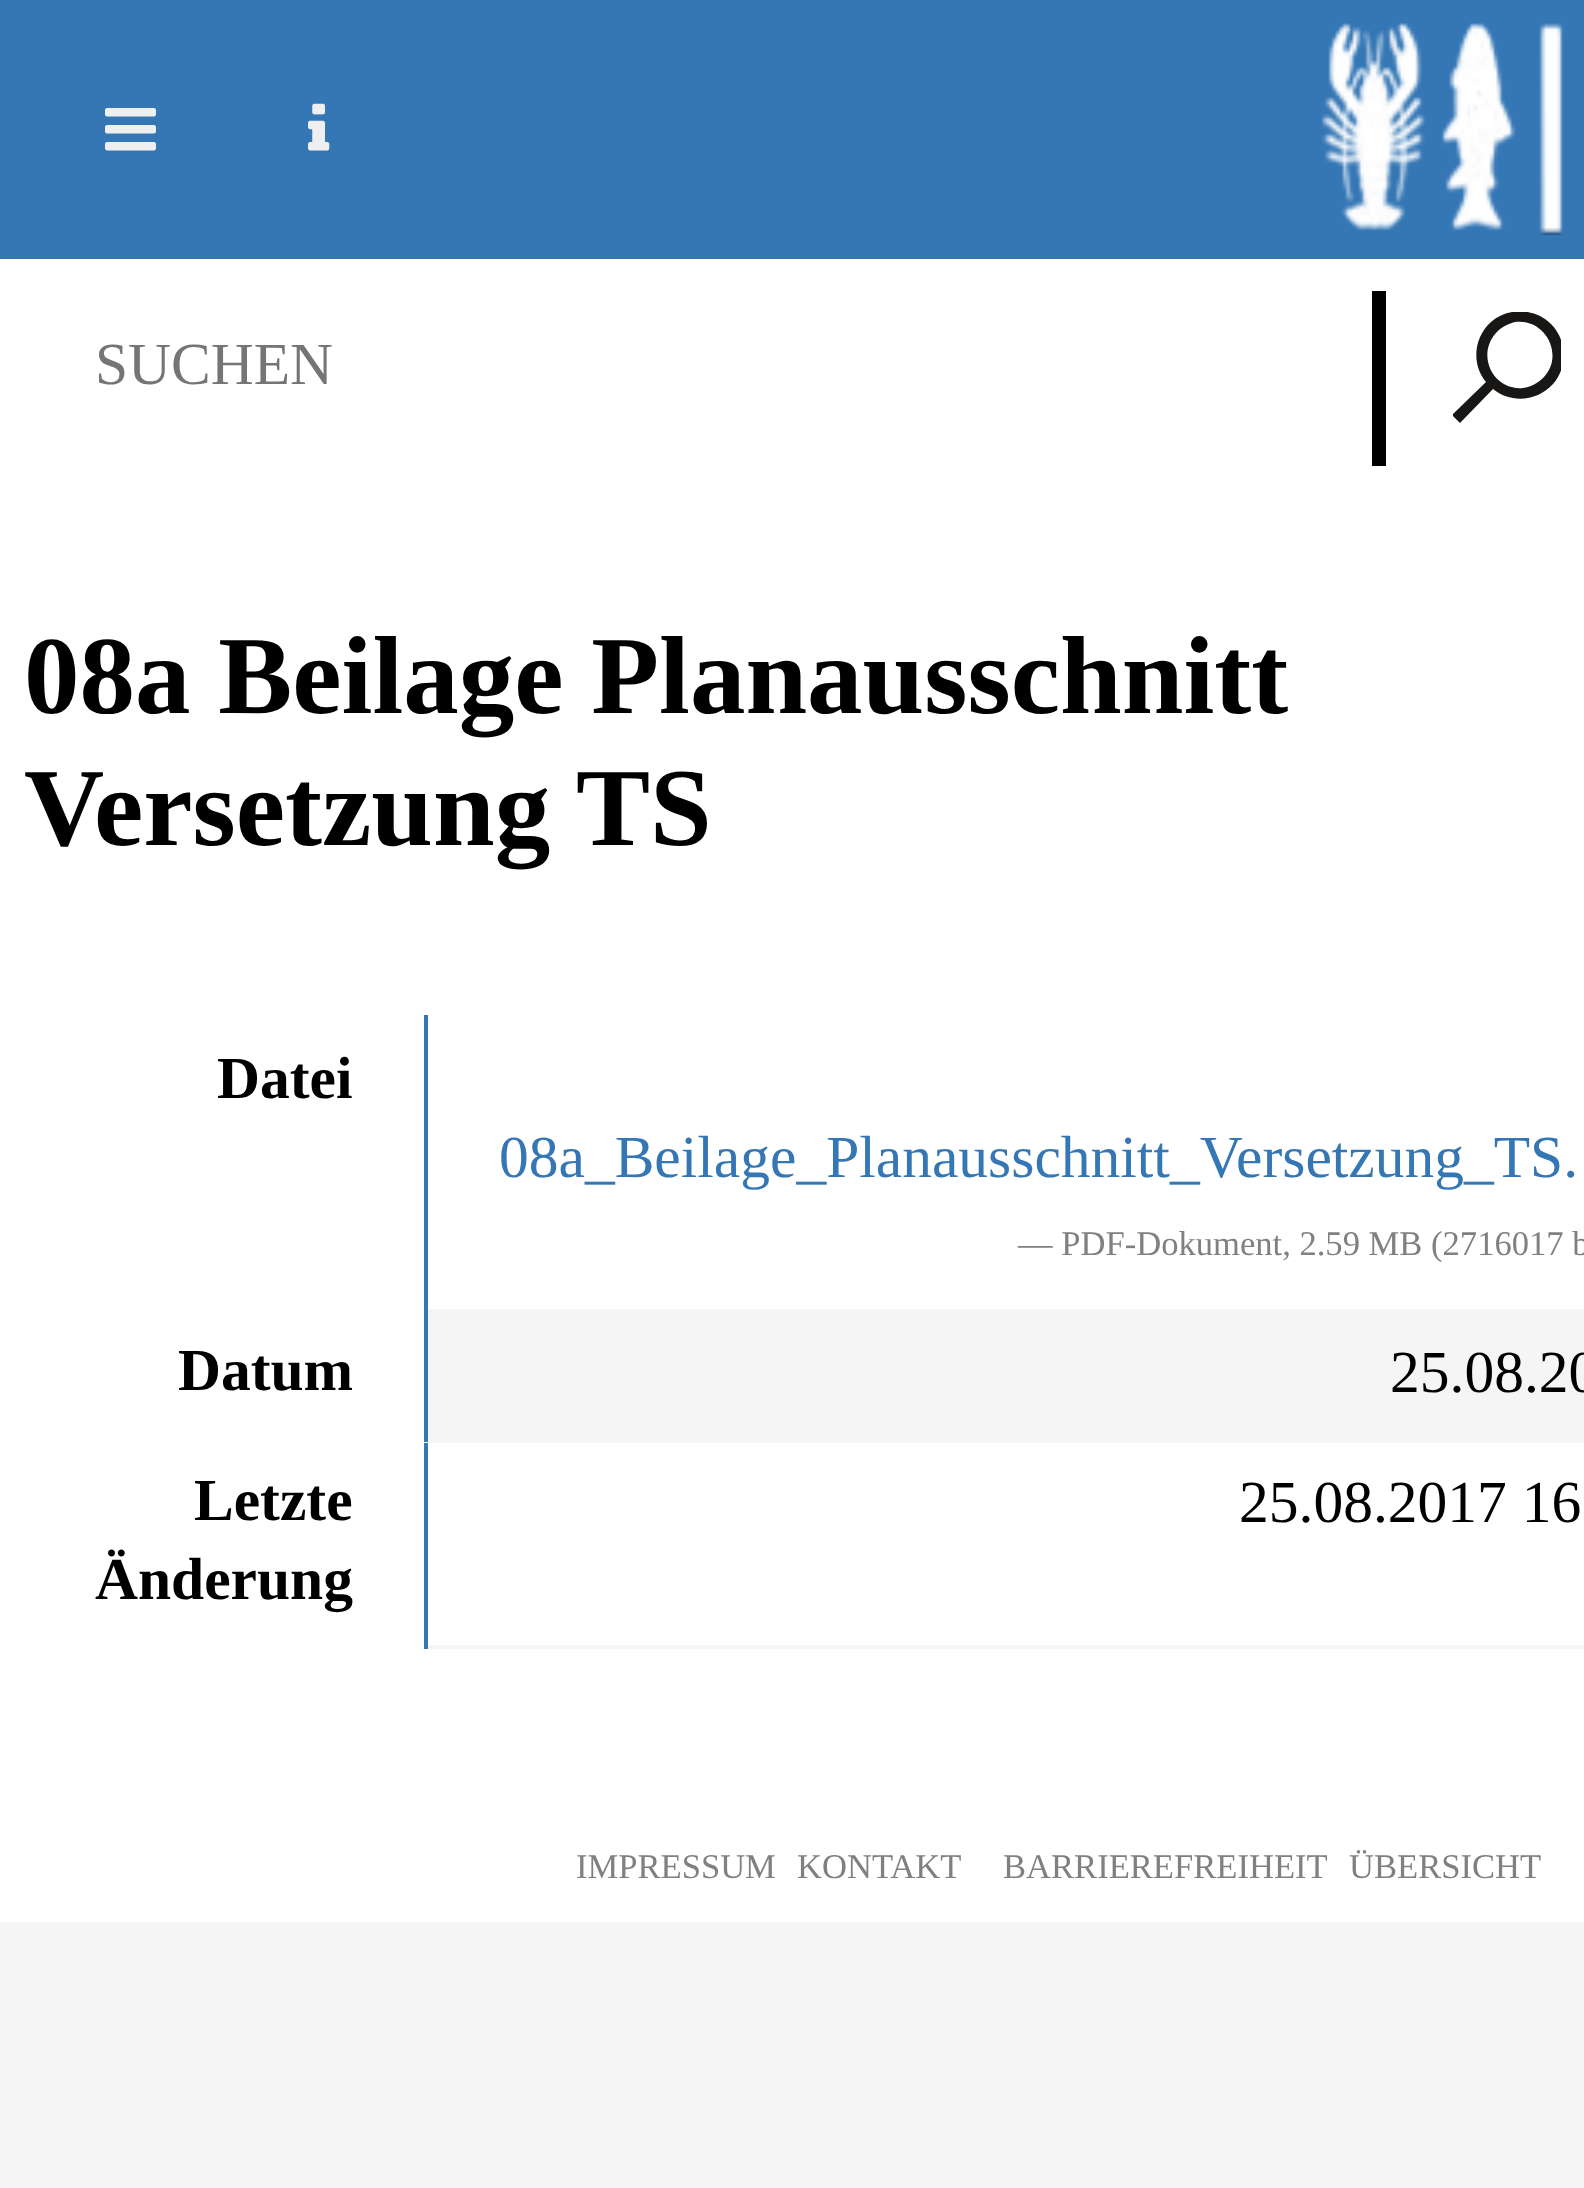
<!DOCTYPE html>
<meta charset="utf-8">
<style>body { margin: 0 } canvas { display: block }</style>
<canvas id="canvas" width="1584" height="2188"></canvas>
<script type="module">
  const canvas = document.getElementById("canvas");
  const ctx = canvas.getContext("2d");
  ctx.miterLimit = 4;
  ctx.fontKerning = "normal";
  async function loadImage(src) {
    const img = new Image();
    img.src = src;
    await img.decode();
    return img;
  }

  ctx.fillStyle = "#f5f5f5";
  ctx.fillRect(0, 0, 1584, 2188);
  ctx.fillStyle = "#3577b5";
  ctx.fillRect(0, 0, 1584, 259);
  ctx.drawImage(await loadImage("img1.png"), 105, 108, 51, 43);
  ctx.drawImage(await loadImage("img2.png"), 308, 103, 22, 48);
  ctx.drawImage(await loadImage("img3.png"), 1321, 23, 243, 212);
  ctx.fillStyle = "#ffffff";
  ctx.fillRect(0, 259, 1584, 1663);
  ctx.font = "59.5px Liberation Serif";
  ctx.fillStyle = "#757575";
  ctx.fillText("SUCHEN", 95, 384);
  ctx.fillStyle = "#000000";
  ctx.fillRect(1372, 291, 14, 175);
  ctx.save();
  ctx.beginPath();
  ctx.rect(1453, 312, 108, 112);
  ctx.clip();
  ctx.fillStyle = "#181716";
  ctx.beginPath();
  ctx.moveTo(1543, 378);
  ctx.bezierCurveTo(1538, 383, 1531, 387, 1523, 388);
  ctx.bezierCurveTo(1493, 391, 1476, 355, 1496, 333);
  ctx.bezierCurveTo(1501, 327, 1508, 324, 1515, 322);
  ctx.bezierCurveTo(1546, 318, 1565, 356, 1543, 378);
  ctx.moveTo(1551, 324);
  ctx.bezierCurveTo(1535, 308, 1508, 307, 1491, 322);
  ctx.bezierCurveTo(1474, 337, 1471, 364, 1486, 382);
  ctx.lineTo(1452, 415);
  ctx.lineTo(1460, 423);
  ctx.lineTo(1493, 389);
  ctx.bezierCurveTo(1511, 404, 1538, 401, 1553, 384);
  ctx.bezierCurveTo(1568, 367, 1567, 340, 1551, 324);
  ctx.fill();
  ctx.restore();
  ctx.font = "bold 111px Liberation Serif";
  ctx.fillText("08a Beilage Planausschnitt", 24, 713);
  ctx.fillText("Versetzung TS", 24, 845);
  ctx.fillStyle = "#f5f5f5";
  ctx.fillRect(424, 1645, 1160, 4);
  ctx.fillStyle = "#3577b5";
  ctx.fillRect(424, 1439, 4, 210);
  ctx.fillStyle = "#f5f5f5";
  ctx.fillRect(424, 1439, 1160, 4);
  ctx.fillStyle = "#3577b5";
  ctx.fillRect(424, 1309, 4, 133);
  ctx.fillStyle = "#f5f5f5";
  ctx.fillRect(424, 1309, 1160, 4);
  ctx.fillStyle = "#3577b5";
  ctx.fillRect(424, 1015, 4, 298);
  ctx.font = "bold 59.5px Liberation Serif";
  ctx.fillStyle = "#000000";
  ctx.fillText("Datei", 217, 1098);
  ctx.font = "59.5px Liberation Serif";
  ctx.fillStyle = "#3577b5";
  ctx.fillText("08a_Beilage_Planausschnitt_Versetzung_TS.", 499, 1177);
  ctx.font = "34.6px Liberation Serif";
  ctx.fillStyle = "#808080";
  ctx.fillText("— PDF-Dokument, 2.59 MB (2716017 b", 1018, 1255);
  ctx.font = "bold 59.5px Liberation Serif";
  ctx.fillStyle = "#000000";
  ctx.fillText("Datum", 178, 1390);
  ctx.fillStyle = "#f5f5f5";
  ctx.fillRect(428, 1313, 1156, 126);
  ctx.font = "59.5px Liberation Serif";
  ctx.fillStyle = "#000000";
  ctx.fillText("25.08.20", 1390, 1392);
  ctx.font = "bold 59.5px Liberation Serif";
  ctx.fillText("Letzte", 194, 1520);
  ctx.fillText("Änderung", 95, 1599);
  ctx.font = "59.5px Liberation Serif";
  ctx.fillText("25.08.2017 16", 1239, 1522);
  ctx.font = "34.6px Liberation Serif";
  ctx.fillStyle = "#808080";
  ctx.fillText("IMPRESSUM", 576, 1878);
  ctx.fillText("KONTAKT", 797, 1878);
  ctx.fillText("BARRIEREFREIHEIT", 1003, 1878);
  ctx.fillText("ÜBERSICHT", 1349, 1878);
</script>
